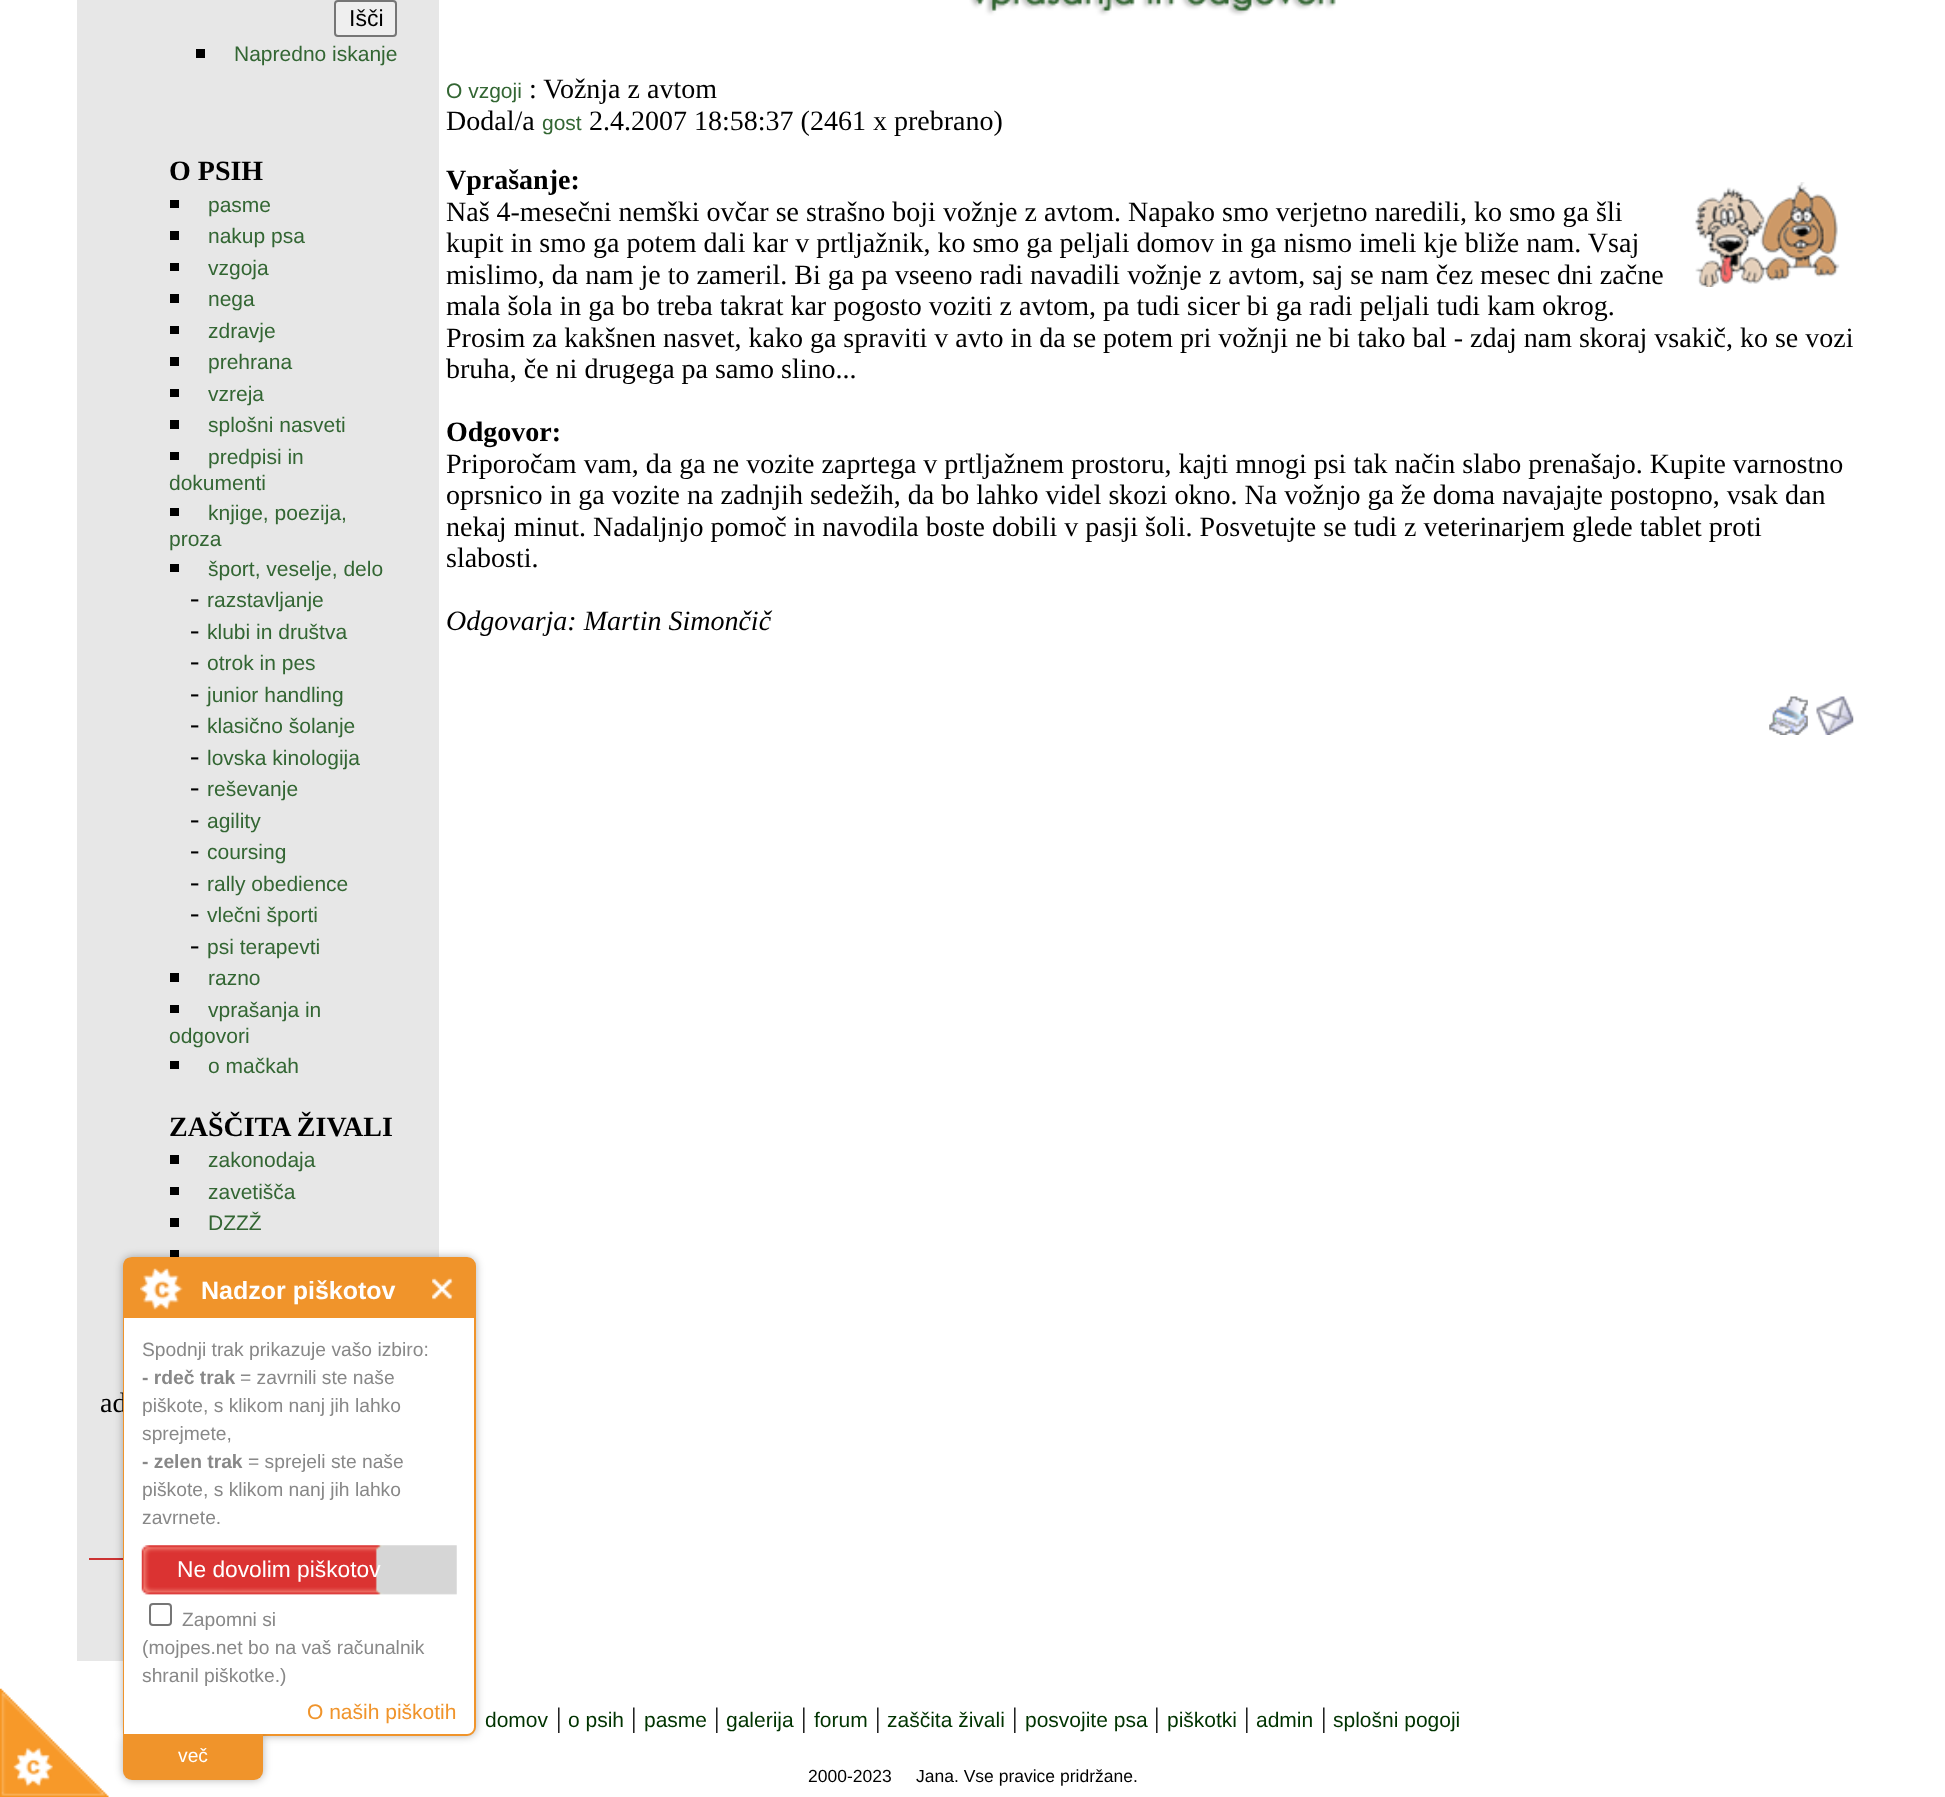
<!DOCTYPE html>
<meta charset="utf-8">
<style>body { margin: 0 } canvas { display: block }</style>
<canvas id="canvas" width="1945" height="1797"></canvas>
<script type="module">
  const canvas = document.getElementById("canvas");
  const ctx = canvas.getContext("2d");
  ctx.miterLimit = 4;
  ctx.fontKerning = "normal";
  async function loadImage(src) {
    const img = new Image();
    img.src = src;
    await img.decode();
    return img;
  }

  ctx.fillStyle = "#ffffff";
  ctx.fillRect(0, 0, 1945, 1797);
  ctx.fillStyle = "#e7e7e7";
  ctx.fillRect(77, 0, 362, 1661);
  ctx.fillStyle = "#efefef";
  ctx.beginPath();
  ctx.roundRect(335, 1, 61, 35, 3);
  ctx.fill();
  ctx.strokeStyle = "#767676";
  ctx.lineWidth = 2;
  ctx.stroke();
  ctx.font = "23px Liberation Sans";
  ctx.fillStyle = "#000000";
  ctx.fillText("Išči", 349, 26);
  ctx.fillRect(196, 49, 9, 9);
  ctx.font = "21px Liberation Sans";
  ctx.fillStyle = "#336633";
  ctx.fillText("Napredno iskanje", 234, 61);
  ctx.font = "bold 28px Liberation Serif";
  ctx.fillStyle = "#000000";
  ctx.fillText("O PSIH", 169, 180);
  ctx.fillRect(170, 200, 9, 8);
  ctx.font = "21px Liberation Sans";
  ctx.fillStyle = "#336633";
  ctx.fillText("pasme", 208, 212);
  ctx.fillStyle = "#000000";
  ctx.fillRect(170, 231, 9, 9);
  ctx.fillStyle = "#336633";
  ctx.fillText("nakup psa", 208, 243);
  ctx.fillStyle = "#000000";
  ctx.fillRect(170, 263, 9, 8);
  ctx.fillStyle = "#336633";
  ctx.fillText("vzgoja", 208, 275);
  ctx.fillStyle = "#000000";
  ctx.fillRect(170, 294, 9, 9);
  ctx.fillStyle = "#336633";
  ctx.fillText("nega", 208, 306);
  ctx.fillStyle = "#000000";
  ctx.fillRect(170, 326, 9, 8);
  ctx.fillStyle = "#336633";
  ctx.fillText("zdravje", 208, 338);
  ctx.fillStyle = "#000000";
  ctx.fillRect(170, 357, 9, 9);
  ctx.fillStyle = "#336633";
  ctx.fillText("prehrana", 208, 369);
  ctx.fillStyle = "#000000";
  ctx.fillRect(170, 389, 9, 8);
  ctx.fillStyle = "#336633";
  ctx.fillText("vzreja", 208, 401);
  ctx.fillStyle = "#000000";
  ctx.fillRect(170, 420, 9, 9);
  ctx.fillStyle = "#336633";
  ctx.fillText("splošni nasveti", 208, 432);
  ctx.fillStyle = "#000000";
  ctx.fillRect(170, 452, 9, 8);
  ctx.fillStyle = "#336633";
  ctx.fillText("predpisi in", 208, 464);
  ctx.fillText("dokumenti", 169, 490);
  ctx.fillStyle = "#000000";
  ctx.fillRect(170, 508, 9, 8);
  ctx.fillStyle = "#336633";
  ctx.fillText("knjige, poezija,", 208, 520);
  ctx.fillText("proza", 169, 546);
  ctx.fillStyle = "#000000";
  ctx.fillRect(170, 564, 9, 8);
  ctx.fillStyle = "#336633";
  ctx.fillText("šport, veselje, delo", 208, 576);
  ctx.font = "28px Liberation Serif";
  ctx.fillStyle = "#000000";
  ctx.fillText("-", 190, 607);
  ctx.font = "21px Liberation Sans";
  ctx.fillStyle = "#336633";
  ctx.fillText("razstavljanje", 207, 607);
  ctx.font = "28px Liberation Serif";
  ctx.fillStyle = "#000000";
  ctx.fillText("-", 190, 639);
  ctx.font = "21px Liberation Sans";
  ctx.fillStyle = "#336633";
  ctx.fillText("klubi in društva", 207, 639);
  ctx.font = "28px Liberation Serif";
  ctx.fillStyle = "#000000";
  ctx.fillText("-", 190, 670);
  ctx.font = "21px Liberation Sans";
  ctx.fillStyle = "#336633";
  ctx.fillText("otrok in pes", 207, 670);
  ctx.font = "28px Liberation Serif";
  ctx.fillStyle = "#000000";
  ctx.fillText("-", 190, 702);
  ctx.font = "21px Liberation Sans";
  ctx.fillStyle = "#336633";
  ctx.fillText("junior handling", 207, 702);
  ctx.font = "28px Liberation Serif";
  ctx.fillStyle = "#000000";
  ctx.fillText("-", 190, 733);
  ctx.font = "21px Liberation Sans";
  ctx.fillStyle = "#336633";
  ctx.fillText("klasično šolanje", 207, 733);
  ctx.font = "28px Liberation Serif";
  ctx.fillStyle = "#000000";
  ctx.fillText("-", 190, 765);
  ctx.font = "21px Liberation Sans";
  ctx.fillStyle = "#336633";
  ctx.fillText("lovska kinologija", 207, 765);
  ctx.font = "28px Liberation Serif";
  ctx.fillStyle = "#000000";
  ctx.fillText("-", 190, 796);
  ctx.font = "21px Liberation Sans";
  ctx.fillStyle = "#336633";
  ctx.fillText("reševanje", 207, 796);
  ctx.font = "28px Liberation Serif";
  ctx.fillStyle = "#000000";
  ctx.fillText("-", 190, 828);
  ctx.font = "21px Liberation Sans";
  ctx.fillStyle = "#336633";
  ctx.fillText("agility", 207, 828);
  ctx.font = "28px Liberation Serif";
  ctx.fillStyle = "#000000";
  ctx.fillText("-", 190, 859);
  ctx.font = "21px Liberation Sans";
  ctx.fillStyle = "#336633";
  ctx.fillText("coursing", 207, 859);
  ctx.font = "28px Liberation Serif";
  ctx.fillStyle = "#000000";
  ctx.fillText("-", 190, 891);
  ctx.font = "21px Liberation Sans";
  ctx.fillStyle = "#336633";
  ctx.fillText("rally obedience", 207, 891);
  ctx.font = "28px Liberation Serif";
  ctx.fillStyle = "#000000";
  ctx.fillText("-", 190, 922);
  ctx.font = "21px Liberation Sans";
  ctx.fillStyle = "#336633";
  ctx.fillText("vlečni športi", 207, 922);
  ctx.font = "28px Liberation Serif";
  ctx.fillStyle = "#000000";
  ctx.fillText("-", 190, 954);
  ctx.font = "21px Liberation Sans";
  ctx.fillStyle = "#336633";
  ctx.fillText("psi terapevti", 207, 954);
  ctx.fillStyle = "#000000";
  ctx.fillRect(170, 973, 9, 9);
  ctx.fillStyle = "#336633";
  ctx.fillText("razno", 208, 985);
  ctx.fillStyle = "#000000";
  ctx.fillRect(170, 1005, 9, 8);
  ctx.fillStyle = "#336633";
  ctx.fillText("vprašanja in", 208, 1017);
  ctx.fillText("odgovori", 169, 1043);
  ctx.fillStyle = "#000000";
  ctx.fillRect(170, 1061, 9, 8);
  ctx.fillStyle = "#336633";
  ctx.fillText("o mačkah", 208, 1073);
  ctx.font = "bold 28px Liberation Serif";
  ctx.fillStyle = "#000000";
  ctx.fillText("ZAŠČITA ŽIVALI", 169, 1136);
  ctx.fillRect(170, 1155, 9, 9);
  ctx.font = "21px Liberation Sans";
  ctx.fillStyle = "#336633";
  ctx.fillText("zakonodaja", 208, 1167);
  ctx.fillStyle = "#000000";
  ctx.fillRect(170, 1187, 9, 8);
  ctx.fillStyle = "#336633";
  ctx.fillText("zavetišča", 208, 1199);
  ctx.fillStyle = "#000000";
  ctx.fillRect(170, 1218, 9, 9);
  ctx.fillStyle = "#336633";
  ctx.fillText("DZZŽ", 208, 1230);
  ctx.fillStyle = "#000000";
  ctx.fillRect(170, 1250, 9, 7);
  ctx.font = "28px Liberation Serif";
  ctx.fillText("ad", 100, 1412);
  ctx.fillStyle = "#cc3333";
  ctx.fillRect(89, 1558, 34, 2);
  ctx.drawImage(await loadImage("img1.png"), 969, 0, 367, 16);
  ctx.font = "21px Liberation Sans";
  ctx.fillStyle = "#336633";
  ctx.fillText("O vzgoji", 446, 98);
  ctx.font = "28px Liberation Serif";
  ctx.fillStyle = "#000000";
  ctx.fillText(": Vožnja z avtom", 529, 98);
  ctx.fillText("Dodal/a", 446, 130);
  ctx.font = "21px Liberation Sans";
  ctx.fillStyle = "#336633";
  ctx.fillText("gost", 542, 130);
  ctx.font = "28px Liberation Serif";
  ctx.fillStyle = "#000000";
  ctx.fillText("2.4.2007 18:58:37 (2461 x prebrano)", 589, 130);
  ctx.font = "bold 28px Liberation Serif";
  ctx.fillText("Vprašanje:", 446, 189);
  ctx.font = "28px Liberation Serif";
  ctx.fillText("Naš 4-mesečni nemški ovčar se strašno boji vožnje z avtom. Napako smo verjetno naredili, ko smo ga šli", 446, 221);
  ctx.fillText("kupit in smo ga potem dali kar v prtljažnik, ko smo ga peljali domov in ga nismo imeli kje bliže nam. Vsaj", 446, 252);
  ctx.fillText("mislimo, da nam je to zameril. Bi ga pa vseeno radi navadili vožnje z avtom, saj se nam čez mesec dni začne", 446, 284);
  ctx.fillText("mala šola in ga bo treba takrat kar pogosto voziti z avtom, pa tudi sicer bi ga radi peljali tudi kam okrog.", 446, 315);
  ctx.fillText("Prosim za kakšnen nasvet, kako ga spraviti v avto in da se potem pri vožnji ne bi tako bal - zdaj nam skoraj vsakič, ko se vozi", 446, 347);
  ctx.fillText("bruha, če ni drugega pa samo slino...", 446, 378);
  ctx.font = "bold 28px Liberation Serif";
  ctx.fillText("Odgovor:", 446, 441);
  ctx.font = "28px Liberation Serif";
  ctx.fillText("Priporočam vam, da ga ne vozite zaprtega v prtljažnem prostoru, kajti mnogi psi tak način slabo prenašajo. Kupite varnostno", 446, 473);
  ctx.fillText("oprsnico in ga vozite na zadnjih sedežih, da bo lahko videl skozi okno. Na vožnjo ga že doma navajajte postopno, vsak dan", 446, 504);
  ctx.fillText("nekaj minut. Nadaljnjo pomoč in navodila boste dobili v pasji šoli. Posvetujte se tudi z veterinarjem glede tablet proti", 446, 536);
  ctx.fillText("slabosti.", 446, 567);
  ctx.font = "italic 28px Liberation Serif";
  ctx.fillText("Odgovarja: Martin Simončič", 446, 630);
  ctx.drawImage(await loadImage("img2.png"), 1695, 182, 145, 105);
  ctx.drawImage(await loadImage("img3.png"), 1769, 696, 39, 39);
  ctx.drawImage(await loadImage("img4.png"), 1816, 696, 38, 39);
  ctx.font = "21px Liberation Sans";
  ctx.fillStyle = "#003300";
  ctx.fillText("domov", 485, 1727);
  ctx.font = "28px Liberation Serif";
  ctx.fillStyle = "#000000";
  ctx.fillText("|", 556, 1727);
  ctx.font = "21px Liberation Sans";
  ctx.fillStyle = "#003300";
  ctx.fillText("o psih", 568, 1727);
  ctx.font = "28px Liberation Serif";
  ctx.fillStyle = "#000000";
  ctx.fillText("|", 631, 1727);
  ctx.font = "21px Liberation Sans";
  ctx.fillStyle = "#003300";
  ctx.fillText("pasme", 644, 1727);
  ctx.font = "28px Liberation Serif";
  ctx.fillStyle = "#000000";
  ctx.fillText("|", 714, 1727);
  ctx.font = "21px Liberation Sans";
  ctx.fillStyle = "#003300";
  ctx.fillText("galerija", 726, 1727);
  ctx.font = "28px Liberation Serif";
  ctx.fillStyle = "#000000";
  ctx.fillText("|", 801, 1727);
  ctx.font = "21px Liberation Sans";
  ctx.fillStyle = "#003300";
  ctx.fillText("forum", 814, 1727);
  ctx.font = "28px Liberation Serif";
  ctx.fillStyle = "#000000";
  ctx.fillText("|", 875, 1727);
  ctx.font = "21px Liberation Sans";
  ctx.fillStyle = "#003300";
  ctx.fillText("zaščita živali", 887, 1727);
  ctx.font = "28px Liberation Serif";
  ctx.fillStyle = "#000000";
  ctx.fillText("|", 1012, 1727);
  ctx.font = "21px Liberation Sans";
  ctx.fillStyle = "#003300";
  ctx.fillText("posvojite psa", 1025, 1727);
  ctx.font = "28px Liberation Serif";
  ctx.fillStyle = "#000000";
  ctx.fillText("|", 1154, 1727);
  ctx.font = "21px Liberation Sans";
  ctx.fillStyle = "#003300";
  ctx.fillText("piškotki", 1167, 1727);
  ctx.font = "28px Liberation Serif";
  ctx.fillStyle = "#000000";
  ctx.fillText("|", 1244, 1727);
  ctx.font = "21px Liberation Sans";
  ctx.fillStyle = "#003300";
  ctx.fillText("admin", 1256, 1727);
  ctx.font = "28px Liberation Serif";
  ctx.fillStyle = "#000000";
  ctx.fillText("|", 1321, 1727);
  ctx.font = "21px Liberation Sans";
  ctx.fillStyle = "#003300";
  ctx.fillText("splošni pogoji", 1333, 1727);
  ctx.font = "17.5px Liberation Sans";
  ctx.fillStyle = "#000000";
  ctx.fillText("2000-2023", 808, 1782);
  ctx.fillText("Jana. Vse pravice pridržane.", 916, 1782);
  ctx.drawImage(await loadImage("img5.png"), 0, 1688, 109, 109);
  ctx.fillStyle = "rgba(0, 0, 0, 0.3)";
  ctx.filter = "blur(4.5px)";
  ctx.beginPath();
  ctx.roundRect(123, 1257, 353, 479, 9);
  ctx.fill();
  ctx.filter = "none";
  ctx.fillStyle = "#ffffff";
  ctx.beginPath();
  ctx.roundRect(124, 1258, 351, 477, [8, 8, 8, 0]);
  ctx.fill();
  ctx.strokeStyle = "#f0942b";
  ctx.stroke();
  ctx.fillStyle = "rgba(0, 0, 0, 0.3)";
  ctx.filter = "blur(4.5px)";
  ctx.beginPath();
  ctx.roundRect(123, 1733, 140, 47, 9);
  ctx.fill();
  ctx.filter = "none";
  ctx.fillStyle = "#f0942b";
  ctx.beginPath();
  ctx.roundRect(123, 1733, 140, 47, [0, 0, 9, 9]);
  ctx.fill();
  ctx.fillStyle = "#ffffff";
  ctx.beginPath();
  ctx.roundRect(124, 1258, 350, 476, [9, 9, 9, 0]);
  ctx.fill();
  ctx.fillStyle = "#f0942b";
  ctx.beginPath();
  ctx.roundRect(124, 1258, 350, 60, [5, 5, 0, 0]);
  ctx.fill();
  ctx.drawImage(await loadImage("img6.png"), 140, 1268, 43, 42);
  ctx.font = "bold 25px Liberation Sans";
  ctx.fillStyle = "#ffffff";
  ctx.fillText("Nadzor piškotov", 201, 1299);
  ctx.drawImage(await loadImage("img7.png"), 432, 1277, 22, 23);
  ctx.font = "19.25px Liberation Sans";
  ctx.fillStyle = "#888888";
  ctx.fillText("Spodnji trak prikazuje vašo izbiro:", 142, 1356);
  ctx.font = "bold 19.25px Liberation Sans";
  ctx.fillText("- rdeč trak", 142, 1384);
  ctx.font = "19.25px Liberation Sans";
  ctx.fillText("= zavrnili ste naše", 240, 1384);
  ctx.fillText("piškote, s klikom nanj jih lahko", 142, 1412);
  ctx.fillText("sprejmete,", 142, 1440);
  ctx.font = "bold 19.25px Liberation Sans";
  ctx.fillText("- zelen trak", 142, 1468);
  ctx.font = "19.25px Liberation Sans";
  ctx.fillText("= sprejeli ste naše", 248, 1468);
  ctx.fillText("piškote, s klikom nanj jih lahko", 142, 1496);
  ctx.fillText("zavrnete.", 142, 1524);
  ctx.drawImage(await loadImage("img8.png"), 141, 1545, 316, 50);
  ctx.font = "22.75px Liberation Sans";
  ctx.fillStyle = "#ffffff";
  ctx.fillText("Ne dovolim piškotov", 177, 1577);
  ctx.beginPath();
  ctx.roundRect(150, 1604, 21, 21, 3);
  ctx.strokeStyle = "#767676";
  ctx.stroke();
  ctx.font = "19.25px Liberation Sans";
  ctx.fillStyle = "#888888";
  ctx.fillText("Zapomni si", 182, 1626);
  ctx.fillText("(mojpes.net bo na vaš računalnik", 142, 1654);
  ctx.fillText("shranil piškotke.)", 142, 1682);
  ctx.font = "21px Liberation Sans";
  ctx.fillStyle = "#f0942b";
  ctx.fillText("O naših piškotih", 307, 1719);
  ctx.font = "19.25px Liberation Sans";
  ctx.fillStyle = "#ffffff";
  ctx.fillText("več", 178, 1762);
</script>
